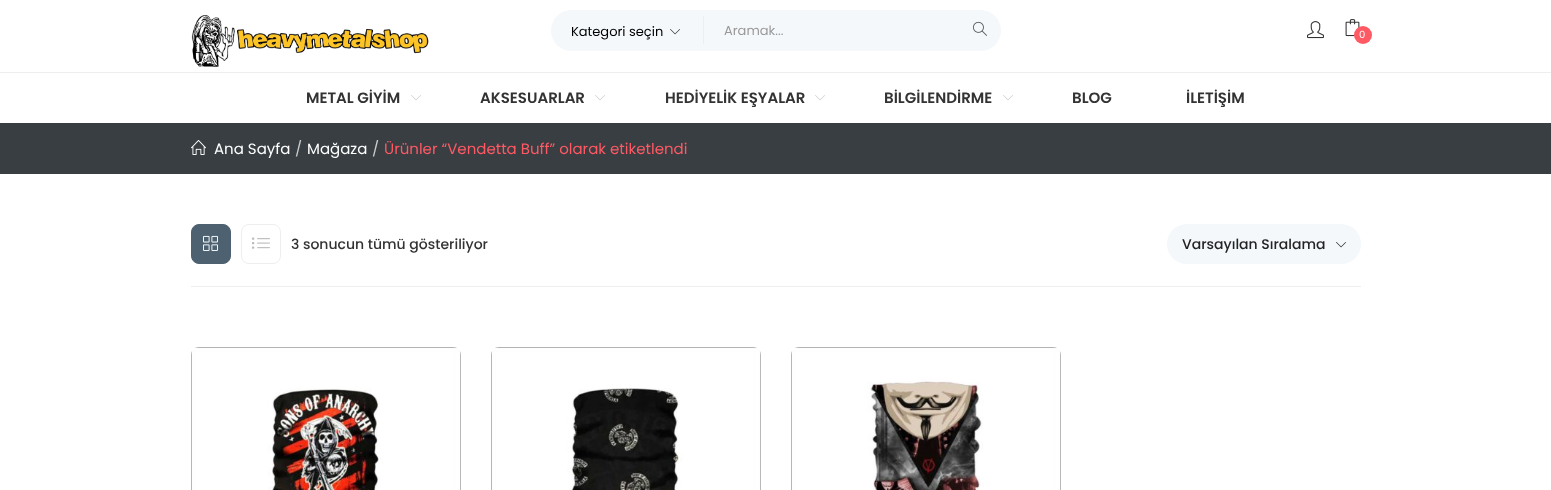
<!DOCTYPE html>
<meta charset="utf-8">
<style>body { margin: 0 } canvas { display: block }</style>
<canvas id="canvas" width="1551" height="490"></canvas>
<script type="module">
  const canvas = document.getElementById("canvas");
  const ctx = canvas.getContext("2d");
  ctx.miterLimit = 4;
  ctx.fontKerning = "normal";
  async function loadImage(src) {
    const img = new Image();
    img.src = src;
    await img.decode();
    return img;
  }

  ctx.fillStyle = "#ffffff";
  ctx.fillRect(0, 0, 1551, 490);
  ctx.drawImage(await loadImage("img1.png"), 191, 15, 238, 52);
  ctx.fillStyle = "#f4f8fb";
  ctx.beginPath();
  ctx.roundRect(551, 10, 450, 41, 20.5);
  ctx.fill();
  ctx.fillStyle = "#eeeeee";
  ctx.fillRect(703, 16, 1, 28);
  ctx.font = "13px Poppins";
  ctx.fillStyle = "#000000";
  ctx.fillText("Kategori seçin", 571, 36);
  ctx.drawImage(await loadImage("img2.png"), 670, 29, 10, 6);
  ctx.fillStyle = "#999999";
  ctx.fillText("Aramak...", 724, 35);
  ctx.drawImage(await loadImage("img3.png"), 973, 21, 14, 15);
  ctx.drawImage(await loadImage("img4.png"), 1307, 21, 17, 18);
  ctx.drawImage(await loadImage("img5.png"), 1345, 19, 15, 18);
  ctx.fillStyle = "#ff5964";
  ctx.beginPath();
  ctx.arc(1363, 35, 9, 0, Math.PI * 2);
  ctx.fill();
  ctx.font = "10px Poppins";
  ctx.fillStyle = "#ffffff";
  ctx.fillText("0", 1359, 38);
  ctx.fillStyle = "#eeeeee";
  ctx.fillRect(0, 72, 1551, 1);
  ctx.font = "600 15px Poppins";
  ctx.fillStyle = "#333333";
  ctx.fillText("METAL GİYİM", 306, 103);
  ctx.drawImage(await loadImage("img6.png"), 411, 95, 10, 6);
  ctx.fillText("AKSESUARLAR", 480, 103);
  ctx.drawImage(await loadImage("img6.png"), 595, 95, 10, 6);
  ctx.fillText("HEDİYELİK EŞYALAR", 665, 103);
  ctx.drawImage(await loadImage("img6.png"), 815, 95, 10, 6);
  ctx.fillText("BİLGİLENDİRME", 884, 103);
  ctx.drawImage(await loadImage("img6.png"), 1003, 95, 10, 6);
  ctx.fillText("BLOG", 1072, 103);
  ctx.fillText("İLETİŞİM", 1186, 103);
  ctx.fillStyle = "#383e42";
  ctx.fillRect(0, 123, 1551, 51);
  ctx.drawImage(await loadImage("img7.png"), 191, 140, 15, 15);
  ctx.font = "15px Poppins";
  ctx.fillStyle = "#ffffff";
  ctx.fillText("Ana Sayfa", 214, 154);
  ctx.fillStyle = "#cccccc";
  ctx.fillText("/", 295, 154);
  ctx.fillStyle = "#ffffff";
  ctx.fillText("Mağaza", 307, 154);
  ctx.fillStyle = "#cccccc";
  ctx.fillText("/", 372, 154);
  ctx.fillStyle = "#ff5964";
  ctx.fillText("Ürünler “Vendetta Buff” olarak etiketlendi", 384, 154);
  ctx.fillStyle = "#eeeeee";
  ctx.fillRect(191, 286, 1170, 1);
  ctx.fillStyle = "#4d6171";
  ctx.beginPath();
  ctx.roundRect(191.5, 224.5, 39, 39, 7.5);
  ctx.fill();
  ctx.strokeStyle = "#4d6171";
  ctx.stroke();
  ctx.drawImage(await loadImage("img8.png"), 203, 235, 15, 16);
  ctx.beginPath();
  ctx.roundRect(241.5, 224.5, 39, 39, 7.5);
  ctx.strokeStyle = "#eeeeee";
  ctx.stroke();
  ctx.drawImage(await loadImage("img9.png"), 252, 237, 18, 12);
  ctx.font = "500 14px Poppins";
  ctx.fillStyle = "#333333";
  ctx.fillText("3 sonucun tümü gösteriliyor", 291, 249);
  ctx.fillStyle = "#f4f8fb";
  ctx.beginPath();
  ctx.roundRect(1167, 224, 194, 40, 20);
  ctx.fill();
  ctx.fillStyle = "#232323";
  ctx.fillText("Varsayılan Sıralama", 1182, 249);
  ctx.drawImage(await loadImage("img10.png"), 1336, 242, 10, 6);
  ctx.drawImage(await loadImage("img11.png"), 191, 347, 270, 143);
  ctx.drawImage(await loadImage("img12.png"), 491, 347, 270, 143);
  ctx.drawImage(await loadImage("img13.png"), 791, 347, 270, 143);
</script>
